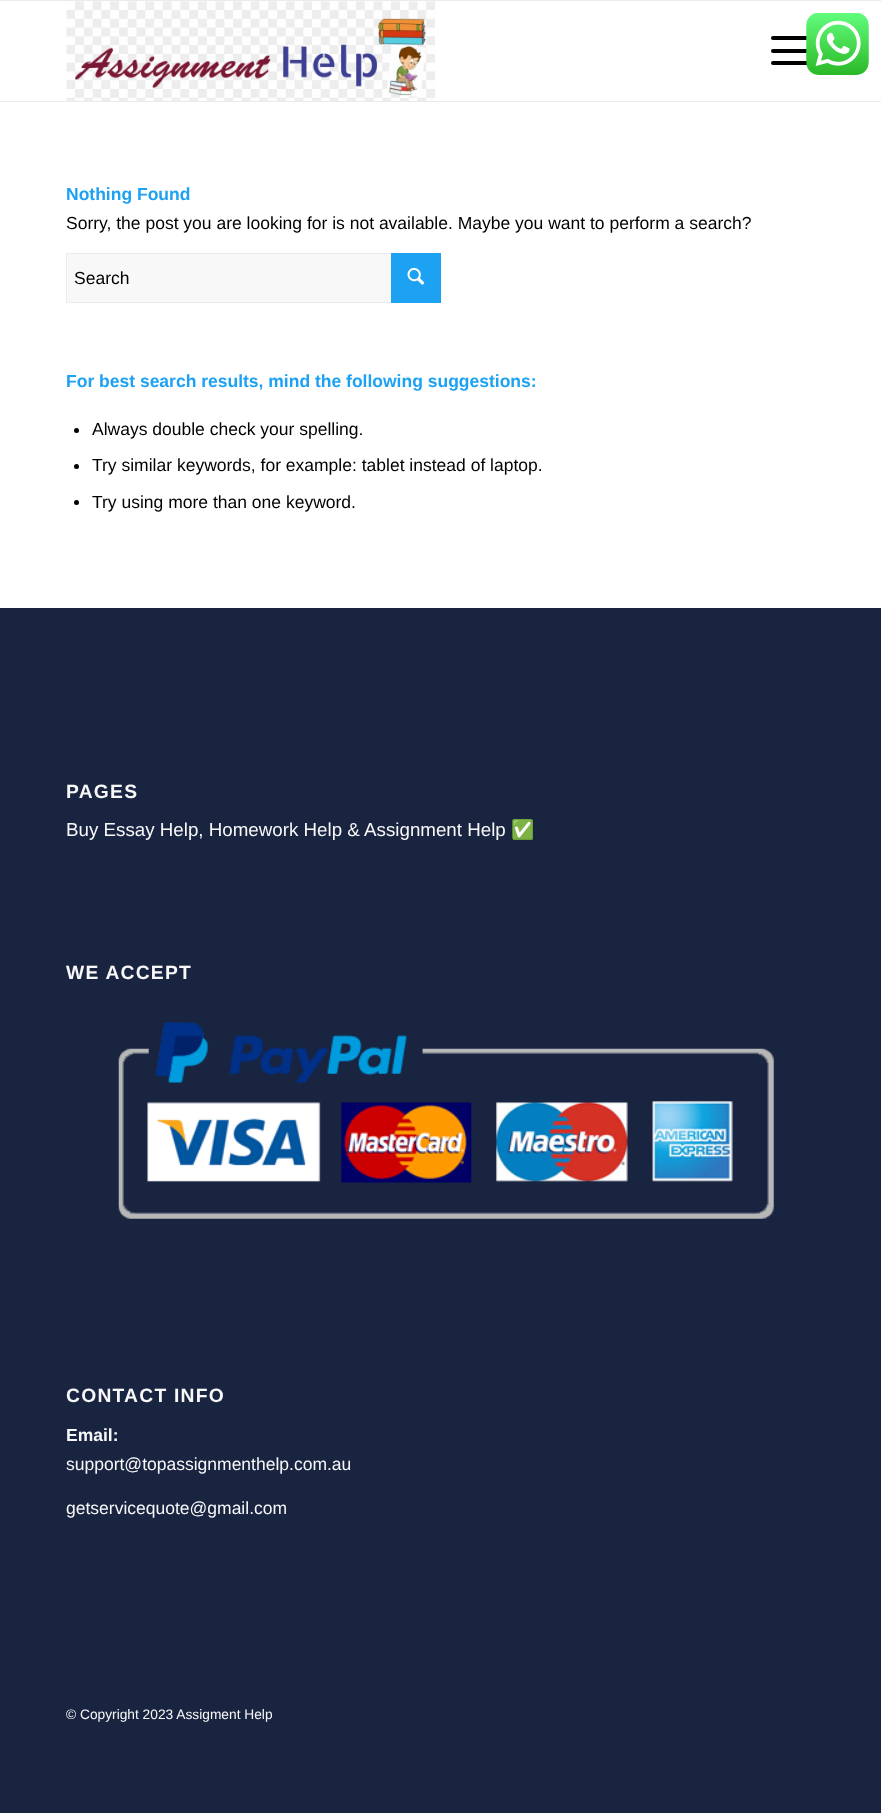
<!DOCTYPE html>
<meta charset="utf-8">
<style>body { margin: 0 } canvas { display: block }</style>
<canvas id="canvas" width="881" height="1813"></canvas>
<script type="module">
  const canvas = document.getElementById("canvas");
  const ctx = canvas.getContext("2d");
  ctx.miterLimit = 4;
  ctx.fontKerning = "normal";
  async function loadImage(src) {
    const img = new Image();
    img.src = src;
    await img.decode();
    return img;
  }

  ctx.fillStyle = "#192441";
  ctx.fillRect(0, 0, 881, 1813);
  ctx.fillStyle = "#ffffff";
  ctx.fillRect(0, 1, 881, 607);
  ctx.fillStyle = "#000000";
  ctx.beginPath();
  ctx.roundRect(771, 49, 44, 4, 2);
  ctx.fill();
  ctx.beginPath();
  ctx.roundRect(771, 36, 44, 4, 2);
  ctx.fill();
  ctx.beginPath();
  ctx.roundRect(771, 61, 44, 4, 2);
  ctx.fill();
  ctx.drawImage(await loadImage("img1.png"), 806, 13, 63, 62);
  ctx.fillStyle = "#ebebeb";
  ctx.fillRect(0, 0, 881, 1);
  ctx.fillRect(0, 101, 881, 1);
  ctx.drawImage(await loadImage("img2.png"), 66, 1, 369, 100);
  ctx.font = "bold 17.5px Liberation Sans";
  ctx.fillStyle = "#1da1f2";
  ctx.fillText("Nothing Found", 66, 200);
  ctx.font = "17.5px Liberation Sans";
  ctx.fillStyle = "#000000";
  ctx.fillText("Sorry, the post you are looking for is not available. Maybe you want to perform a search?", 66, 229);
  ctx.fillStyle = "#f8f8f8";
  ctx.fillRect(67, 254, 324, 48);
  ctx.strokeStyle = "#ebebeb";
  ctx.strokeRect(66.5, 253.5, 374, 49);
  ctx.fillStyle = "#000000";
  ctx.fillText("Search", 74, 284);
  ctx.fillStyle = "#1da1f2";
  ctx.fillRect(391, 253, 50, 50);
  ctx.drawImage(await loadImage("img3.png"), 407, 267, 18, 18);
  ctx.font = "bold 17.5px Liberation Sans";
  ctx.fillText("For best search results, mind the following suggestions:", 66, 387);
  ctx.fillStyle = "#000000";
  ctx.beginPath();
  ctx.arc(76.5, 430.5, 2.5, 0, Math.PI * 2);
  ctx.fill();
  ctx.font = "17.5px Liberation Sans";
  ctx.fillText("Always double check your spelling.", 92, 435);
  ctx.beginPath();
  ctx.arc(76.5, 466.5, 2.5, 0, Math.PI * 2);
  ctx.fill();
  ctx.fillText("Try similar keywords, for example: tablet instead of laptop.", 92, 471);
  ctx.beginPath();
  ctx.arc(76.5, 502.5, 2.5, 0, Math.PI * 2);
  ctx.fill();
  ctx.fillText("Try using more than one keyword.", 92, 508);
  ctx.letterSpacing = "1.25px";
  ctx.font = "bold 19.25px Liberation Sans";
  ctx.fillStyle = "#f8f8f8";
  ctx.fillText("PAGES", 66, 798);
  ctx.letterSpacing = "0px";
  ctx.font = "18.75px Liberation Sans";
  ctx.fillText("Buy Essay Help, Homework Help & Assignment Help", 66, 836);
  ctx.font = "18.75px Noto Color Emoji";
  ctx.fillText("✅", 511, 836);
  ctx.letterSpacing = "1.25px";
  ctx.font = "bold 19.25px Liberation Sans";
  ctx.fillText("WE ACCEPT", 66, 979);
  ctx.drawImage(await loadImage("img4.png"), 118, 1022, 656, 197);
  ctx.fillText("CONTACT INFO", 66, 1402);
  ctx.letterSpacing = "0px";
  ctx.font = "bold 17.5px Liberation Sans";
  ctx.fillText("Email:", 66, 1441);
  ctx.font = "17.5px Liberation Sans";
  ctx.fillText("support@topassignmenthelp.com.au", 66, 1470);
  ctx.fillText("getservicequote@gmail.com", 66, 1514);
  ctx.font = "13.75px Liberation Sans";
  ctx.fillText("© Copyright 2023 Assigment Help", 66, 1719);
</script>
